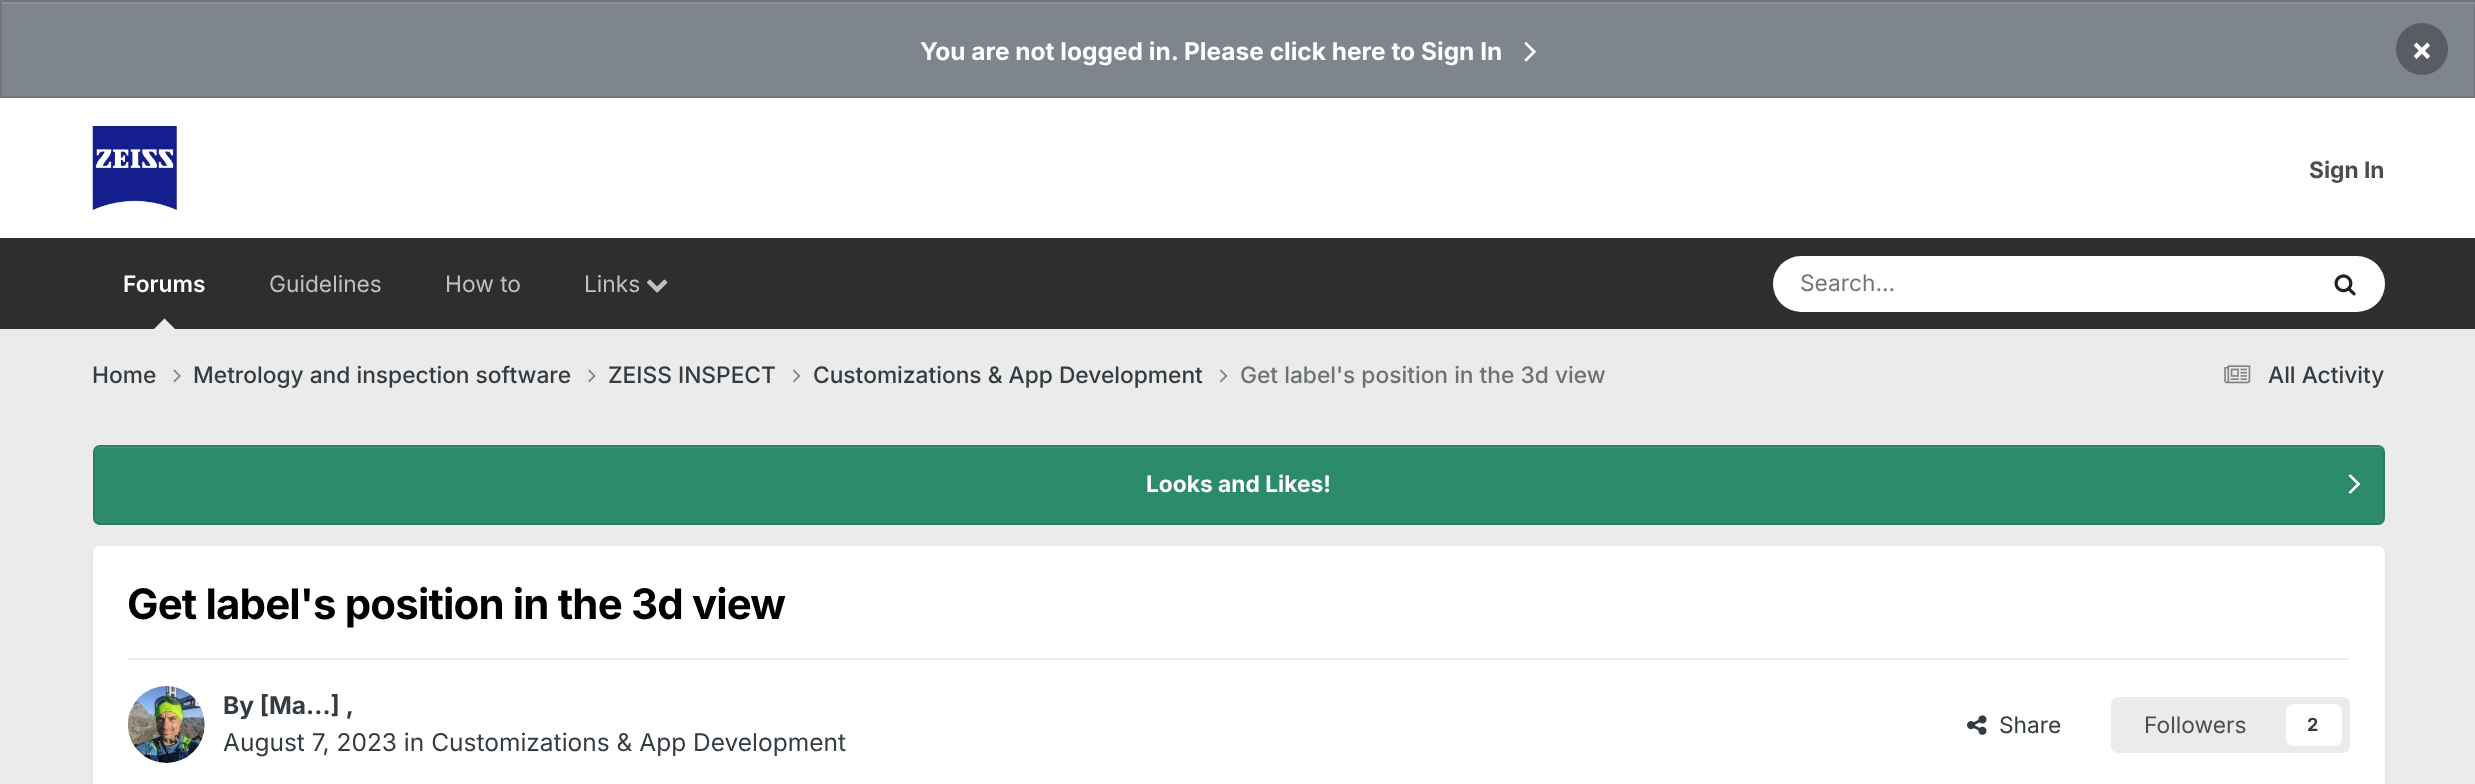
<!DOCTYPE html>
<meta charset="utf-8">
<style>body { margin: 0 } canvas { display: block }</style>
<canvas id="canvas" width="2475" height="784"></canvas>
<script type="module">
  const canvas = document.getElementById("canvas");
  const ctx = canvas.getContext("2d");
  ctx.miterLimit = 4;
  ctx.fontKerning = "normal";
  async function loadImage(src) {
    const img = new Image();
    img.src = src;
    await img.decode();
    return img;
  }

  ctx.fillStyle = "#ebebeb";
  ctx.fillRect(0, 0, 2475, 784);
  ctx.fillStyle = "#7f858d";
  ctx.fillRect(0, 0, 2475, 98);
  ctx.fillStyle = "#8c9198";
  ctx.fillRect(2, 2, 2473, 2);
  ctx.strokeStyle = "rgba(0, 0, 0, 0.1)";
  ctx.lineWidth = 2;
  ctx.strokeRect(1, 1, 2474, 96);
  ctx.font = "bold 24.5px Inter";
  ctx.fillStyle = "#ffffff";
  ctx.fillText("You are not logged in. Please click here to Sign In", 920, 60);
  ctx.drawImage(await loadImage("img1.png"), 1524, 42, 12, 20);
  ctx.fillStyle = "#595d63";
  ctx.beginPath();
  ctx.arc(2422, 49, 26, 0, Math.PI * 2);
  ctx.fill();
  ctx.font = "bold 32px Inter";
  ctx.fillStyle = "#ffffff";
  ctx.fillText("×", 2411, 60);
  ctx.fillRect(0, 98, 2475, 140);
  ctx.drawImage(await loadImage("img2.png"), 92, 126, 85, 84);
  ctx.font = "bold 22.75px Inter";
  ctx.fillStyle = "#4d4d4d";
  ctx.fillText("Sign In", 2309, 178);
  ctx.fillStyle = "#2e2e2e";
  ctx.fillRect(0, 238, 2475, 91);
  ctx.font = "600 22.75px Inter";
  ctx.fillStyle = "#ffffff";
  ctx.fillText("Forums", 123, 292);
  ctx.fillStyle = "#ebebeb";
  ctx.beginPath();
  ctx.moveTo(175, 329);
  ctx.lineTo(154, 329);
  ctx.lineTo(164.5, 318.5);
  ctx.closePath();
  ctx.fill();
  ctx.font = "22.75px Inter";
  ctx.fillStyle = "#c0c0c0";
  ctx.fillText("Guidelines", 269, 292);
  ctx.fillText("How to", 445, 292);
  ctx.fillText("Links", 584, 292);
  ctx.drawImage(await loadImage("img3.png"), 647, 279, 21, 14);
  ctx.fillStyle = "#ffffff";
  ctx.beginPath();
  ctx.roundRect(1773, 256, 612, 56, 28);
  ctx.fill();
  ctx.fillStyle = "#757575";
  ctx.fillText("Search...", 1800, 291);
  ctx.drawImage(await loadImage("img4.png"), 2334, 274, 22, 22);
  ctx.font = "500 22.75px Inter";
  ctx.fillStyle = "#353c41";
  ctx.fillText("Home", 92, 383);
  ctx.drawImage(await loadImage("img5.png"), 173, 369, 8, 14);
  ctx.fillText("Metrology and inspection software", 193, 383);
  ctx.drawImage(await loadImage("img6.png"), 588, 369, 8, 14);
  ctx.fillText("ZEISS INSPECT", 608, 383);
  ctx.drawImage(await loadImage("img7.png"), 793, 369, 8, 14);
  ctx.fillText("Customizations & App Development", 813, 383);
  ctx.drawImage(await loadImage("img7.png"), 1220, 369, 8, 14);
  ctx.fillStyle = "#6c7174";
  ctx.fillText("Get label's position in the 3d view", 1240, 383);
  ctx.drawImage(await loadImage("img8.png"), 2224, 365, 27, 19);
  ctx.fillStyle = "#353c41";
  ctx.fillText("All Activity", 2268, 383);
  ctx.fillStyle = "#2c8c69";
  ctx.beginPath();
  ctx.roundRect(93, 445, 2292, 80, 7);
  ctx.fill();
  ctx.fillStyle = "#419878";
  ctx.beginPath();
  ctx.moveTo(100, 448);
  ctx.lineTo(2378, 448);
  ctx.bezierCurveTo(2381, 448, 2384, 450, 2384, 453);
  ctx.lineTo(2384, 451);
  ctx.bezierCurveTo(2384, 448, 2382, 446, 2379, 446);
  ctx.lineTo(100, 446);
  ctx.bezierCurveTo(98, 446, 95, 448, 95, 450);
  ctx.bezierCurveTo(96, 449, 98, 448, 100, 448);
  ctx.closePath();
  ctx.fill();
  ctx.beginPath();
  ctx.roundRect(94, 446, 2290, 78, 6);
  ctx.stroke();
  ctx.font = "bold 22.75px Inter";
  ctx.fillStyle = "#ffffff";
  ctx.fillText("Looks and Likes!", 1146, 492);
  ctx.drawImage(await loadImage("img9.png"), 2348, 474, 12, 20);
  ctx.fillStyle = "rgba(77, 77, 77, 0.1)";
  ctx.filter = "blur(3.5px)";
  ctx.beginPath();
  ctx.roundRect(95, 551, 2289, 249, 5);
  ctx.fill();
  ctx.filter = "none";
  ctx.fillStyle = "#ffffff";
  ctx.beginPath();
  ctx.roundRect(93, 546, 2292, 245, 7);
  ctx.fill();
  ctx.letterSpacing = "-0.85px";
  ctx.font = "bold 42px Inter";
  ctx.fillStyle = "#000000";
  ctx.fillText("Get label's position in the 3d view", 127, 619);
  ctx.fillStyle = "#efeff0";
  ctx.fillRect(128, 658, 2222, 2);
  ctx.drawImage(await loadImage("img10.png"), 127, 686, 78, 77);
  ctx.letterSpacing = "0px";
  ctx.font = "bold 24.5px Inter";
  ctx.fillStyle = "#353c41";
  ctx.fillText("By [Ma...] ,", 223, 714);
  ctx.font = "24.5px Inter";
  ctx.fillText("August 7, 2023 in Customizations & App Development", 223, 751);
  ctx.drawImage(await loadImage("img11.png"), 1967, 715, 20, 20);
  ctx.font = "22.75px Inter";
  ctx.fillText("Share", 1999, 733);
  ctx.fillStyle = "#ebebeb";
  ctx.beginPath();
  ctx.roundRect(2111, 697, 239, 56, 7);
  ctx.fill();
  ctx.fillStyle = "#4d4d4d";
  ctx.fillText("Followers", 2144, 733);
  ctx.fillStyle = "#ffffff";
  ctx.beginPath();
  ctx.roundRect(2286, 704, 56, 42, 7);
  ctx.fill();
  ctx.font = "bold 18px Inter";
  ctx.fillStyle = "#353c41";
  ctx.fillText("2", 2307, 731);
</script>
